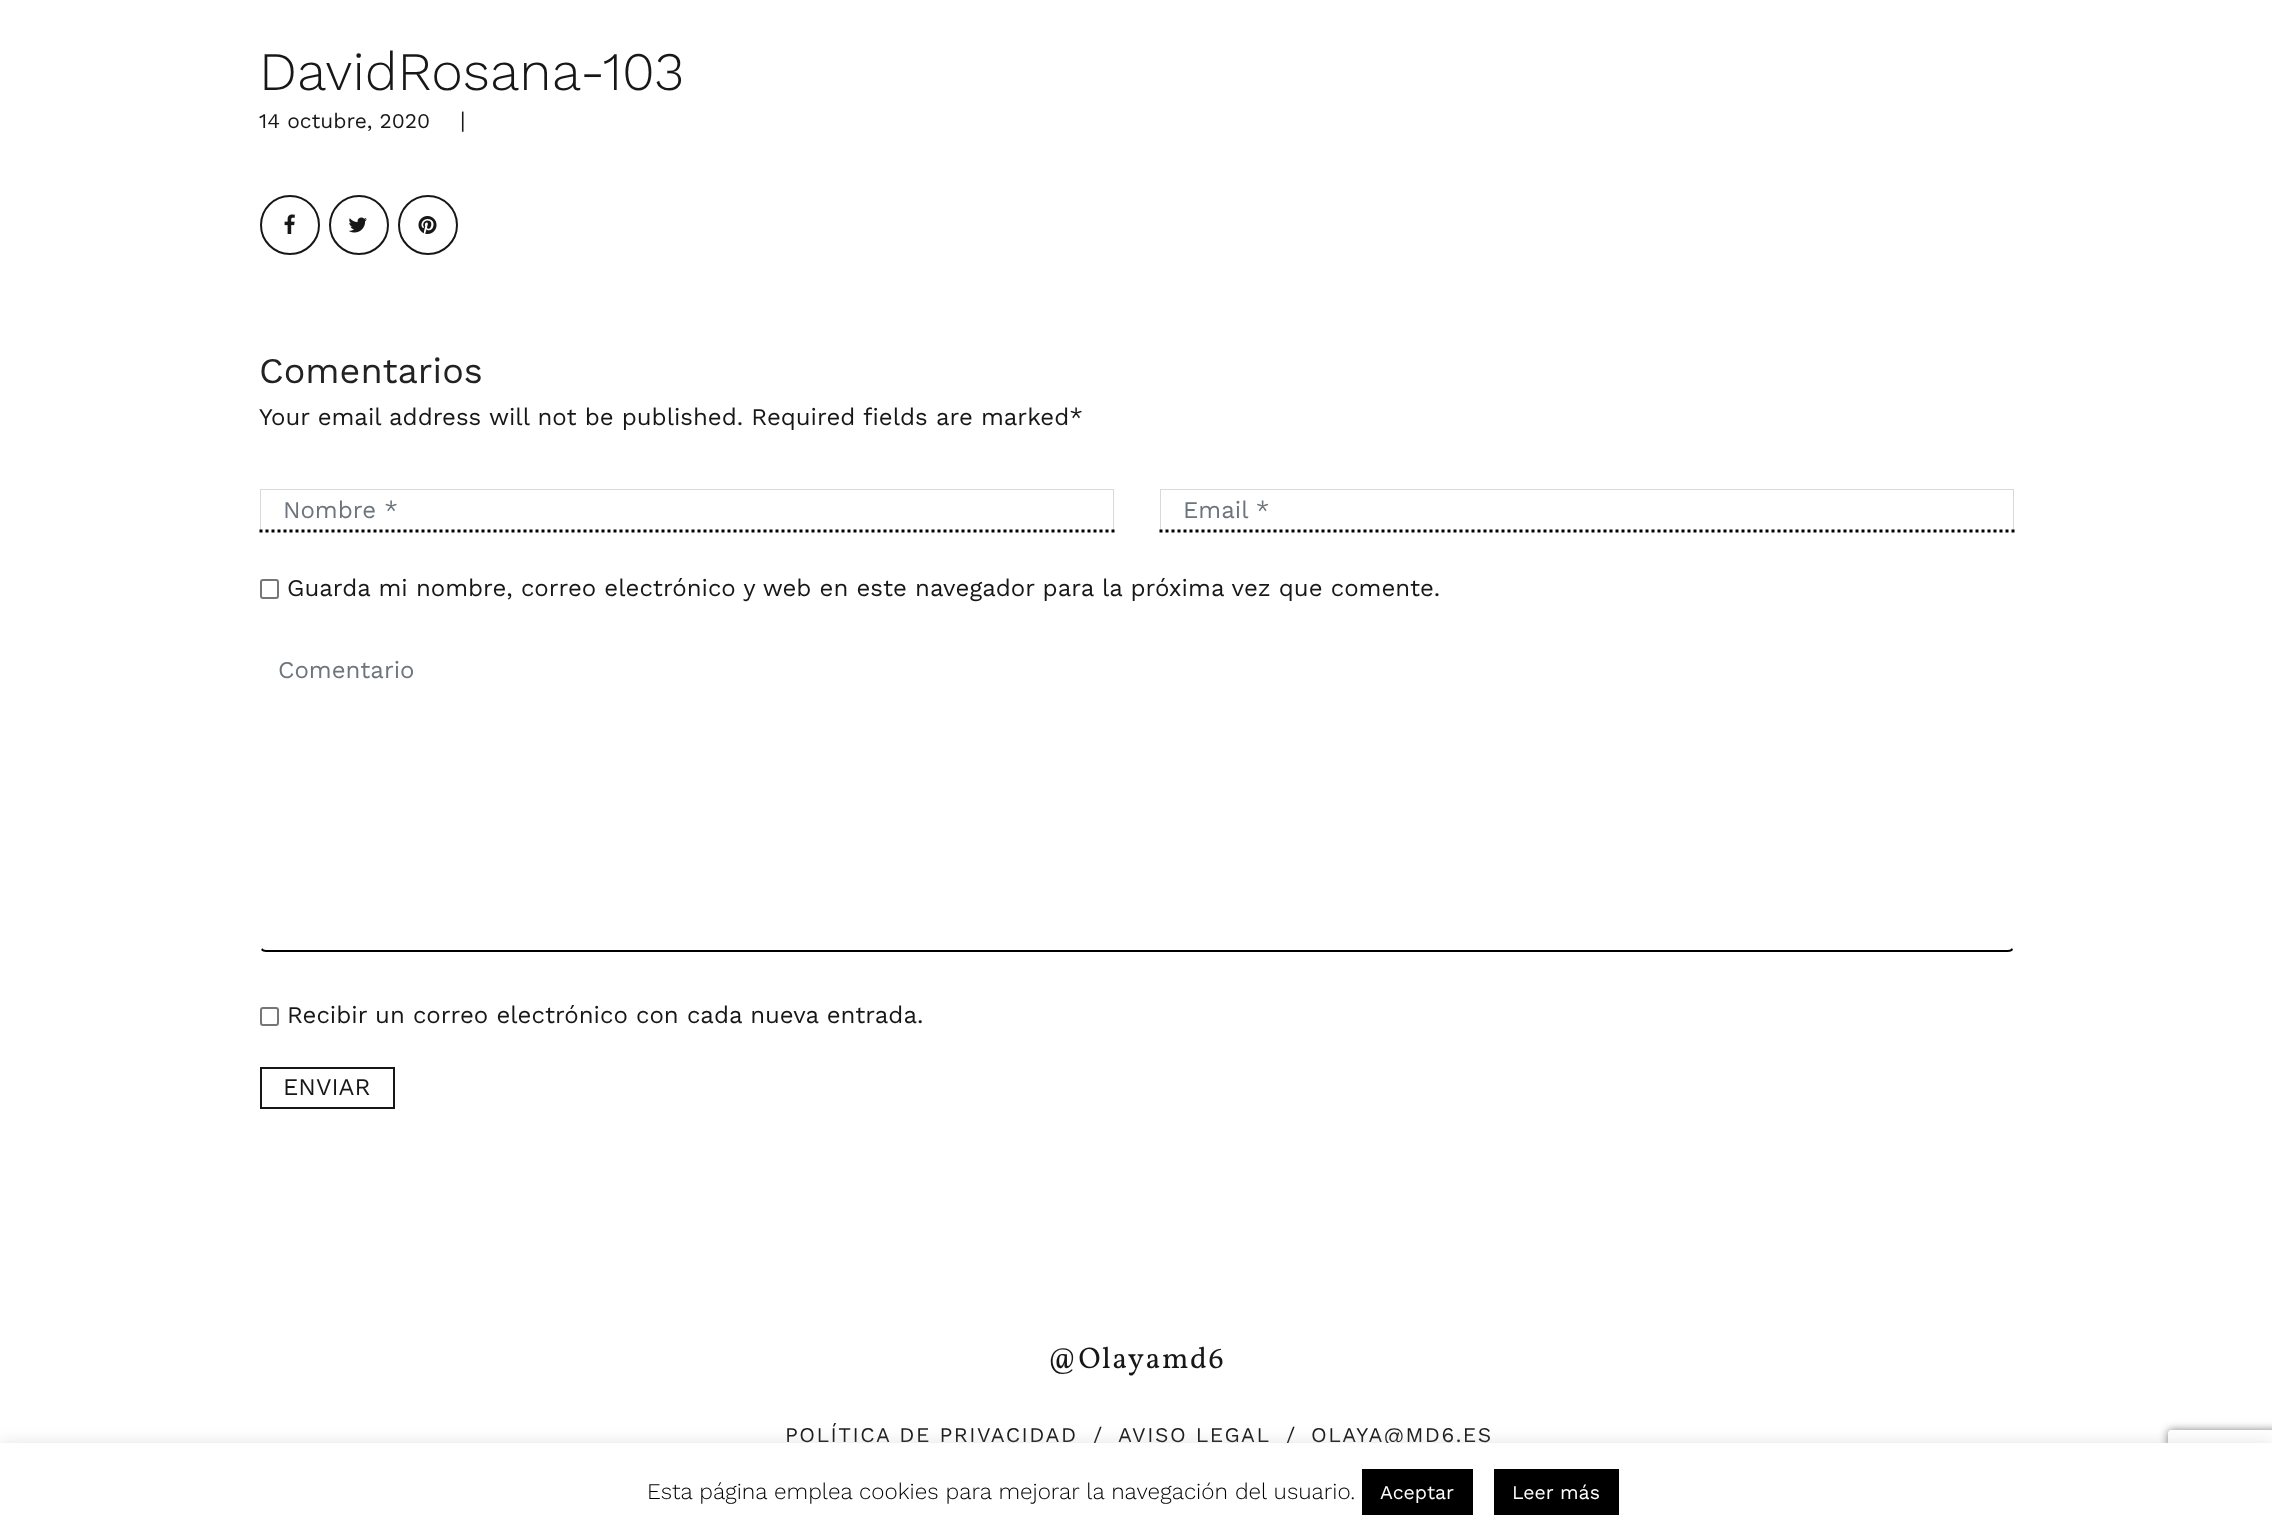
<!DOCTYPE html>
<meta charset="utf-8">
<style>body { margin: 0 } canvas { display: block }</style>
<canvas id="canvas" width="2272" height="1540"></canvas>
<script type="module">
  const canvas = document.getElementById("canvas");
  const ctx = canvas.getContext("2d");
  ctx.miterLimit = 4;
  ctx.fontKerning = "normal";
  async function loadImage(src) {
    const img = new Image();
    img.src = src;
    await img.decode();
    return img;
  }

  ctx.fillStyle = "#ffffff";
  ctx.fillRect(0, 0, 2272, 1540);
  ctx.font = "300 54px Work Sans";
  ctx.fillStyle = "#171718";
  ctx.fillText("DavidRosana-103", 259, 90);
  ctx.font = "21px Work Sans";
  ctx.fillText("14 octubre, 2020", 259, 128);
  ctx.font = "22.5px Work Sans";
  ctx.fillText("|", 460, 128);
  ctx.beginPath();
  ctx.arc(290, 225, 29, 0, Math.PI * 2);
  ctx.strokeStyle = "#171718";
  ctx.lineWidth = 2;
  ctx.stroke();
  ctx.drawImage(await loadImage("img1.png"), 284, 214, 11, 20);
  ctx.beginPath();
  ctx.arc(359, 225, 29, 0, Math.PI * 2);
  ctx.stroke();
  ctx.drawImage(await loadImage("img2.png"), 348, 217, 19, 16);
  ctx.beginPath();
  ctx.arc(428, 225, 29, 0, Math.PI * 2);
  ctx.stroke();
  ctx.drawImage(await loadImage("img3.png"), 418, 216, 19, 18);
  ctx.font = "36px Work Sans";
  ctx.fillStyle = "#222222";
  ctx.fillText("Comentarios", 259, 383);
  ctx.font = "24px Work Sans";
  ctx.fillStyle = "#171718";
  ctx.fillText("Your email address will not be published. Required fields are marked*", 259, 425);
  ctx.fillStyle = "#d9d9d9";
  ctx.beginPath();
  ctx.moveTo(260, 489);
  ctx.lineTo(1114, 489);
  ctx.lineTo(1113, 490);
  ctx.lineTo(261, 490);
  ctx.closePath();
  ctx.fill();
  ctx.fillStyle = "rgba(0, 0, 0, 0.15)";
  ctx.beginPath();
  ctx.moveTo(1114, 489);
  ctx.lineTo(1114, 532);
  ctx.lineTo(1113, 530);
  ctx.lineTo(1113, 490);
  ctx.closePath();
  ctx.fill();
  ctx.beginPath();
  ctx.moveTo(259.5, 531);
  ctx.lineTo(1114.5, 531);
  ctx.strokeStyle = "#000000";
  ctx.lineWidth = 3;
  ctx.setLineDash([3, 3]);
  ctx.stroke();
  ctx.beginPath();
  ctx.moveTo(260, 532);
  ctx.lineTo(260, 489);
  ctx.lineTo(261, 490);
  ctx.lineTo(261, 530);
  ctx.closePath();
  ctx.fill();
  ctx.fillStyle = "#6c757d";
  ctx.fillText("Nombre *", 283, 518);
  ctx.fillStyle = "#d9d9d9";
  ctx.beginPath();
  ctx.moveTo(1160, 489);
  ctx.lineTo(2014, 489);
  ctx.lineTo(2013, 490);
  ctx.lineTo(1161, 490);
  ctx.closePath();
  ctx.fill();
  ctx.fillStyle = "rgba(0, 0, 0, 0.15)";
  ctx.beginPath();
  ctx.moveTo(2014, 489);
  ctx.lineTo(2014, 532);
  ctx.lineTo(2013, 530);
  ctx.lineTo(2013, 490);
  ctx.closePath();
  ctx.fill();
  ctx.beginPath();
  ctx.moveTo(1159.5, 531);
  ctx.lineTo(2014.5, 531);
  ctx.stroke();
  ctx.beginPath();
  ctx.moveTo(1160, 532);
  ctx.lineTo(1160, 489);
  ctx.lineTo(1161, 490);
  ctx.lineTo(1161, 530);
  ctx.closePath();
  ctx.fill();
  ctx.fillStyle = "#6c757d";
  ctx.fillText("Email *", 1183, 518);
  ctx.beginPath();
  ctx.roundRect(261, 580, 17, 18, 2);
  ctx.strokeStyle = "#767676";
  ctx.lineWidth = 2;
  ctx.setLineDash([]);
  ctx.stroke();
  ctx.fillStyle = "#171718";
  ctx.fillText("Guarda mi nombre, correo electrónico y web en este navegador para la próxima vez que comente.", 287, 596);
  ctx.fillStyle = "#000000";
  ctx.beginPath();
  ctx.moveTo(2013, 950);
  ctx.bezierCurveTo(2012, 951, 2010, 952, 2008, 952);
  ctx.lineTo(266, 952);
  ctx.bezierCurveTo(264, 952, 262, 951, 261, 950);
  ctx.lineTo(262, 948);
  ctx.bezierCurveTo(263, 949, 264, 950, 266, 950);
  ctx.lineTo(2008, 950);
  ctx.bezierCurveTo(2010, 950, 2011, 949, 2012, 948);
  ctx.closePath();
  ctx.fill();
  ctx.fillStyle = "#ffffff";
  ctx.beginPath();
  ctx.moveTo(261, 644);
  ctx.bezierCurveTo(260, 645, 260, 647, 260, 648);
  ctx.lineTo(260, 946);
  ctx.bezierCurveTo(260, 948, 260, 949, 261, 950);
  ctx.lineTo(262, 948);
  ctx.lineTo(261, 946);
  ctx.lineTo(261, 648);
  ctx.bezierCurveTo(261, 647, 262, 646, 263, 645);
  ctx.closePath();
  ctx.fill();
  ctx.fillStyle = "#6c757d";
  ctx.fillText("Comentario", 278, 678);
  ctx.beginPath();
  ctx.roundRect(261, 1008, 17, 17, 2);
  ctx.stroke();
  ctx.fillStyle = "#171718";
  ctx.fillText("Recibir un correo electrónico con cada nueva entrada.", 287, 1023);
  ctx.strokeStyle = "#171718";
  ctx.strokeRect(261, 1068, 133, 40);
  ctx.fillText("ENVIAR", 283, 1095);
  ctx.letterSpacing = "1.5px";
  ctx.font = "30px Vollkorn";
  ctx.fillText("@Olayamd6", 1047, 1368);
  ctx.font = "21px Work Sans";
  ctx.fillText("POLÍTICA DE PRIVACIDAD", 785, 1442);
  ctx.fillText("/", 1093, 1442);
  ctx.fillText("AVISO LEGAL", 1118, 1442);
  ctx.fillText("/", 1286, 1442);
  ctx.fillText("OLAYA@MD6.ES", 1311, 1442);
  ctx.fillStyle = "rgba(172, 171, 171, 0.3)";
  ctx.filter = "blur(7.5px)";
  ctx.beginPath();
  ctx.rect(0, 1442, 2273, 97);
  ctx.fill();
  ctx.filter = "none";
  ctx.save();
  ctx.beginPath();
  ctx.moveTo(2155, 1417);
  ctx.lineTo(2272, 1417);
  ctx.lineTo(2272, 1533);
  ctx.lineTo(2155, 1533);
  ctx.closePath();
  ctx.moveTo(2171, 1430);
  ctx.lineTo(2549, 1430);
  ctx.bezierCurveTo(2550.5, 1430, 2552, 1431.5, 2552, 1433);
  ctx.lineTo(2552, 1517);
  ctx.bezierCurveTo(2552, 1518.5, 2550.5, 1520, 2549, 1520);
  ctx.lineTo(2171, 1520);
  ctx.bezierCurveTo(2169.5, 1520, 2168, 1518.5, 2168, 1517);
  ctx.lineTo(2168, 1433);
  ctx.bezierCurveTo(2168, 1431.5, 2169.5, 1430, 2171, 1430);
  ctx.closePath();
  ctx.clip("evenodd");
  ctx.fillStyle = "#808080";
  ctx.filter = "blur(4px)";
  ctx.beginPath();
  ctx.roundRect(2168, 1430, 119, 90, 3);
  ctx.fill();
  ctx.filter = "none";
  ctx.restore();
  ctx.fillStyle = "#ffffff";
  ctx.fillRect(0, 1443, 2272, 97);
  ctx.letterSpacing = "0px";
  ctx.font = "300 22.5px Work Sans";
  ctx.fillStyle = "#000000";
  ctx.fillText("Esta página emplea cookies para mejorar la navegación del usuario.", 647, 1499);
  ctx.fillRect(1362, 1469, 111, 46);
  ctx.font = "19.5px Work Sans";
  ctx.fillStyle = "#ffffff";
  ctx.fillText("Aceptar", 1380, 1499);
  ctx.fillStyle = "#000000";
  ctx.fillRect(1494, 1469, 125, 46);
  ctx.fillStyle = "#ffffff";
  ctx.fillText("Leer más", 1512, 1499);
</script>
